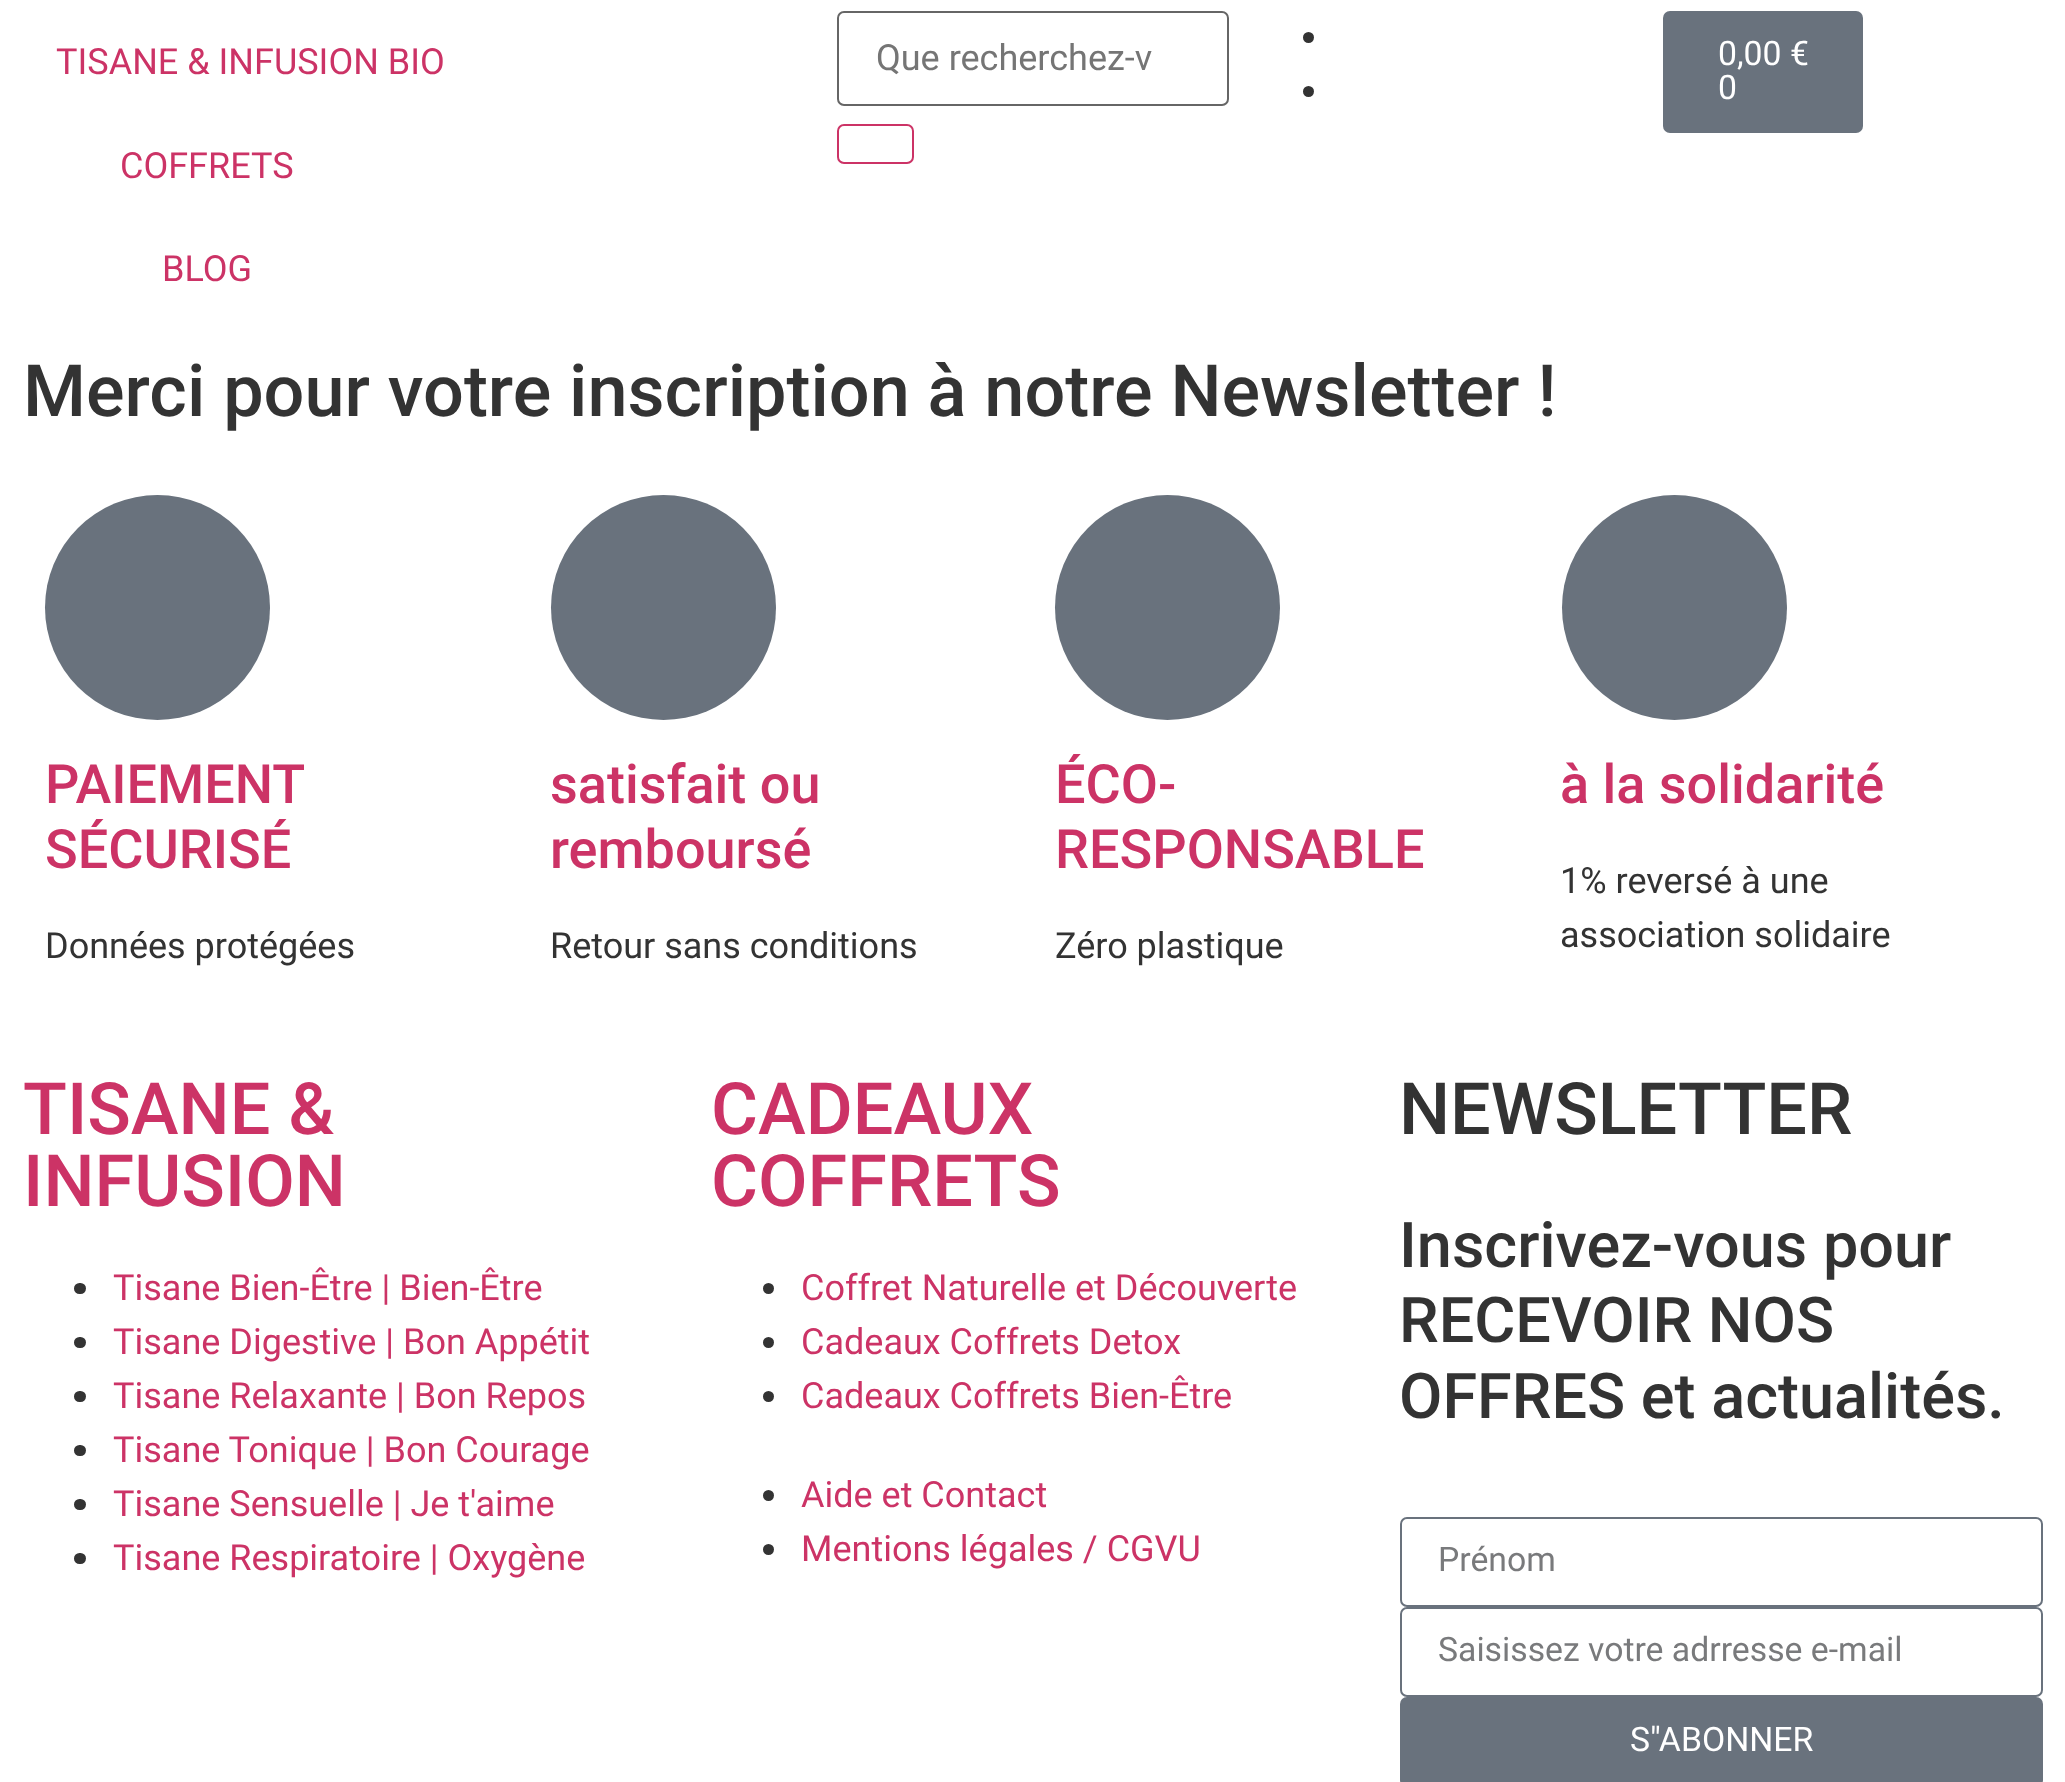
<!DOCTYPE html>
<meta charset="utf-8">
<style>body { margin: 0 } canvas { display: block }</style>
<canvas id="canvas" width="2065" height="1782"></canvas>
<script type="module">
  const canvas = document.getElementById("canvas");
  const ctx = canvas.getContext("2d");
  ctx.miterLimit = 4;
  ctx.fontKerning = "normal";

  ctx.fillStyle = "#ffffff";
  ctx.fillRect(0, 0, 2065, 1782);
  ctx.font = "36px Roboto";
  ctx.fillStyle = "#cc3366";
  ctx.fillText("TISANE & INFUSION BIO", 56, 74);
  ctx.fillText("COFFRETS", 120, 178);
  ctx.fillText("BLOG", 162, 281);
  ctx.beginPath();
  ctx.roundRect(838, 12, 390, 93, 6);
  ctx.strokeStyle = "#666666";
  ctx.lineWidth = 2;
  ctx.stroke();
  ctx.fillStyle = "#757575";
  ctx.fillText("Que recherchez-v", 876, 70);
  ctx.beginPath();
  ctx.roundRect(838, 125, 75, 38, 6);
  ctx.strokeStyle = "#cc3366";
  ctx.stroke();
  ctx.fillStyle = "#333333";
  ctx.beginPath();
  ctx.arc(1308.5, 37.5, 5.5, 0, Math.PI * 2);
  ctx.fill();
  ctx.beginPath();
  ctx.arc(1308.5, 91.5, 5.5, 0, Math.PI * 2);
  ctx.fill();
  ctx.fillStyle = "#69727d";
  ctx.beginPath();
  ctx.roundRect(1663, 11, 200, 122, 7);
  ctx.fill();
  ctx.font = "33.75px Roboto";
  ctx.fillStyle = "#ffffff";
  ctx.fillText("0,00 €", 1718, 65);
  ctx.fillText("0", 1718, 99);
  ctx.font = "500 72px Roboto";
  ctx.fillStyle = "#333333";
  ctx.fillText("Merci pour votre inscription à notre Newsletter !", 23, 416);
  ctx.fillStyle = "#69727d";
  ctx.beginPath();
  ctx.arc(157.5, 607.5, 112.5, 0, Math.PI * 2);
  ctx.fill();
  ctx.font = "500 54px Roboto";
  ctx.fillStyle = "#cc3366";
  ctx.fillText("PAIEMENT", 45, 803);
  ctx.fillText("SÉCURISÉ", 45, 868);
  ctx.font = "36px Roboto";
  ctx.fillStyle = "#333333";
  ctx.fillText("Données protégées", 45, 958);
  ctx.fillStyle = "#69727d";
  ctx.beginPath();
  ctx.arc(663.5, 607.5, 112.5, 0, Math.PI * 2);
  ctx.fill();
  ctx.font = "500 54px Roboto";
  ctx.fillStyle = "#cc3366";
  ctx.fillText("satisfait ou", 550, 803);
  ctx.fillText("remboursé", 550, 868);
  ctx.font = "36px Roboto";
  ctx.fillStyle = "#333333";
  ctx.fillText("Retour sans conditions", 550, 958);
  ctx.fillStyle = "#69727d";
  ctx.beginPath();
  ctx.arc(1167.5, 607.5, 112.5, 0, Math.PI * 2);
  ctx.fill();
  ctx.font = "500 54px Roboto";
  ctx.fillStyle = "#cc3366";
  ctx.fillText("ÉCO-", 1055, 803);
  ctx.fillText("RESPONSABLE", 1055, 868);
  ctx.font = "36px Roboto";
  ctx.fillStyle = "#333333";
  ctx.fillText("Zéro plastique", 1055, 958);
  ctx.fillStyle = "#69727d";
  ctx.beginPath();
  ctx.arc(1674.5, 607.5, 112.5, 0, Math.PI * 2);
  ctx.fill();
  ctx.font = "500 54px Roboto";
  ctx.fillStyle = "#cc3366";
  ctx.fillText("à la solidarité", 1560, 803);
  ctx.font = "36px Roboto";
  ctx.fillStyle = "#333333";
  ctx.fillText("1% reversé à une", 1560, 893);
  ctx.fillText("association solidaire", 1560, 947);
  ctx.font = "500 72px Roboto";
  ctx.fillStyle = "#cc3366";
  ctx.fillText("TISANE &", 23, 1134);
  ctx.fillText("INFUSION", 23, 1206);
  ctx.fillStyle = "#333333";
  ctx.beginPath();
  ctx.roundRect(74, 1283, 12, 11, 5.5);
  ctx.fill();
  ctx.font = "36px Roboto";
  ctx.fillStyle = "#cc3366";
  ctx.fillText("Tisane Bien-Être | Bien-Être", 113, 1300);
  ctx.fillStyle = "#333333";
  ctx.beginPath();
  ctx.roundRect(74, 1337, 12, 11, 5.5);
  ctx.fill();
  ctx.fillStyle = "#cc3366";
  ctx.fillText("Tisane Digestive | Bon Appétit", 113, 1354);
  ctx.fillStyle = "#333333";
  ctx.beginPath();
  ctx.roundRect(74, 1391, 12, 11, 5.5);
  ctx.fill();
  ctx.fillStyle = "#cc3366";
  ctx.fillText("Tisane Relaxante | Bon Repos", 113, 1408);
  ctx.fillStyle = "#333333";
  ctx.beginPath();
  ctx.roundRect(74, 1445, 12, 11, 5.5);
  ctx.fill();
  ctx.fillStyle = "#cc3366";
  ctx.fillText("Tisane Tonique | Bon Courage", 113, 1462);
  ctx.fillStyle = "#333333";
  ctx.beginPath();
  ctx.roundRect(74, 1499, 12, 11, 5.5);
  ctx.fill();
  ctx.fillStyle = "#cc3366";
  ctx.fillText("Tisane Sensuelle | Je t'aime", 113, 1516);
  ctx.fillStyle = "#333333";
  ctx.beginPath();
  ctx.roundRect(74, 1553, 12, 11, 5.5);
  ctx.fill();
  ctx.fillStyle = "#cc3366";
  ctx.fillText("Tisane Respiratoire | Oxygène", 113, 1570);
  ctx.font = "500 72px Roboto";
  ctx.fillText("CADEAUX", 711, 1134);
  ctx.fillText("COFFRETS", 711, 1206);
  ctx.fillStyle = "#333333";
  ctx.beginPath();
  ctx.arc(768.5, 1288.5, 5.5, 0, Math.PI * 2);
  ctx.fill();
  ctx.font = "36px Roboto";
  ctx.fillStyle = "#cc3366";
  ctx.fillText("Coffret Naturelle et Découverte", 801, 1300);
  ctx.fillStyle = "#333333";
  ctx.beginPath();
  ctx.arc(768.5, 1342.5, 5.5, 0, Math.PI * 2);
  ctx.fill();
  ctx.fillStyle = "#cc3366";
  ctx.fillText("Cadeaux Coffrets Detox", 801, 1354);
  ctx.fillStyle = "#333333";
  ctx.beginPath();
  ctx.arc(768.5, 1396.5, 5.5, 0, Math.PI * 2);
  ctx.fill();
  ctx.fillStyle = "#cc3366";
  ctx.fillText("Cadeaux Coffrets Bien-Être", 801, 1408);
  ctx.fillStyle = "#333333";
  ctx.beginPath();
  ctx.arc(768.5, 1495.5, 5.5, 0, Math.PI * 2);
  ctx.fill();
  ctx.fillStyle = "#cc3366";
  ctx.fillText("Aide et Contact", 801, 1507);
  ctx.fillStyle = "#333333";
  ctx.beginPath();
  ctx.arc(768.5, 1549.5, 5.5, 0, Math.PI * 2);
  ctx.fill();
  ctx.fillStyle = "#cc3366";
  ctx.fillText("Mentions légales / CGVU", 801, 1561);
  ctx.font = "500 72px Roboto";
  ctx.fillStyle = "#333333";
  ctx.fillText("NEWSLETTER", 1399, 1134);
  ctx.font = "500 63px Roboto";
  ctx.fillText("Inscrivez-vous pour", 1399, 1267);
  ctx.fillText("RECEVOIR NOS", 1399, 1342);
  ctx.fillText("OFFRES et actualités.", 1399, 1418);
  ctx.beginPath();
  ctx.roundRect(1401, 1518, 641, 88, 6);
  ctx.strokeStyle = "#69727d";
  ctx.stroke();
  ctx.font = "33.75px Roboto";
  ctx.fillStyle = "#797a7c";
  ctx.fillText("Prénom", 1438, 1571);
  ctx.beginPath();
  ctx.roundRect(1401, 1608, 641, 88, 6);
  ctx.stroke();
  ctx.fillText("Saisissez votre adrresse e-mail", 1438, 1661);
  ctx.fillStyle = "#69727d";
  ctx.beginPath();
  ctx.roundRect(1400, 1697, 643, 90, 7);
  ctx.fill();
  ctx.fillStyle = "#ffffff";
  ctx.fillText("S\"ABONNER", 1630, 1751);
</script>
